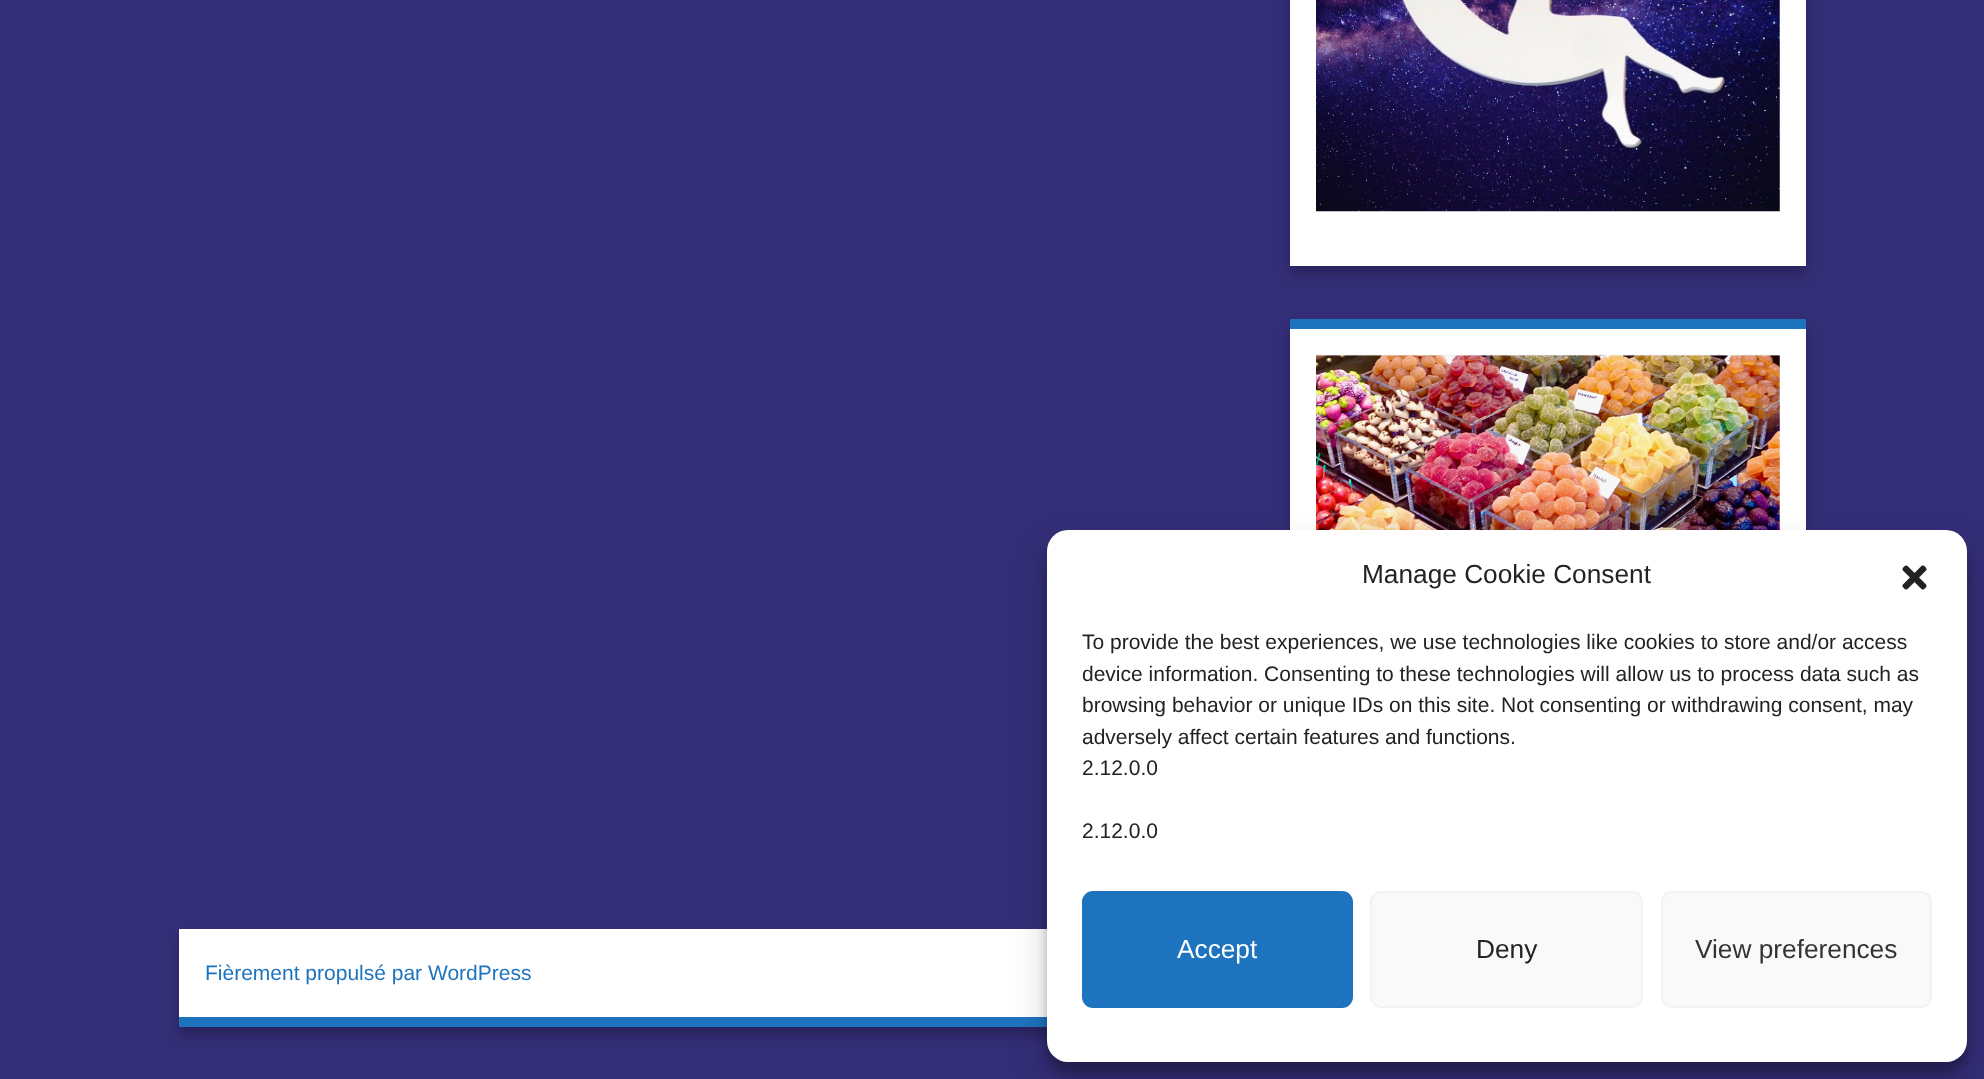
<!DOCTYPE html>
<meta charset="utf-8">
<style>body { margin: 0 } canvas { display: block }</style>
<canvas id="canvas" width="1984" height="1079"></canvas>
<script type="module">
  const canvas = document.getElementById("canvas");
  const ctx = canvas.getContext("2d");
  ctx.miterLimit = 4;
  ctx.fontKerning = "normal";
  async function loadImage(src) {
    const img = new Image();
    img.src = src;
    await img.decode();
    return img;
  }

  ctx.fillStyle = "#342e77";
  ctx.fillRect(0, 0, 1984, 1079);
  ctx.fillStyle = "rgba(0, 0, 0, 0.22)";
  ctx.filter = "blur(6px)";
  ctx.beginPath();
  ctx.rect(1290, 327, 516, 559);
  ctx.fill();
  ctx.filter = "none";
  ctx.fillStyle = "#ffffff";
  ctx.fillRect(1290, 329, 516, 201);
  ctx.drawImage(await loadImage("img3.png"), 1316, 354, 464, 176);
  ctx.fillStyle = "rgba(0, 0, 0, 0.22)";
  ctx.filter = "blur(6px)";
  ctx.beginPath();
  ctx.rect(179, 938, 1627, 98);
  ctx.fill();
  ctx.filter = "none";
  ctx.fillStyle = "#ffffff";
  ctx.fillRect(179, 929, 868, 88);
  ctx.fillStyle = "#1e73be";
  ctx.fillRect(179, 1017, 868, 10);
  ctx.fillStyle = "rgba(0, 0, 0, 0.23)";
  ctx.filter = "blur(5px)";
  ctx.beginPath();
  ctx.roundRect(1047, 541, 920, 532, 21);
  ctx.fill();
  ctx.filter = "none";
  ctx.fillStyle = "rgba(0, 0, 0, 0.19)";
  ctx.filter = "blur(17.5px)";
  ctx.beginPath();
  ctx.roundRect(1047, 548, 920, 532, 21);
  ctx.fill();
  ctx.filter = "none";
  ctx.fillStyle = "#ffffff";
  ctx.beginPath();
  ctx.roundRect(1047, 530, 920, 532, 21);
  ctx.fill();
  ctx.font = "26.25px Liberation Sans";
  ctx.fillStyle = "#222222";
  ctx.fillText("Manage Cookie Consent", 1362, 583);
  ctx.drawImage(await loadImage("img1.png"), 1902, 565, 25, 25);
  ctx.font = "21px Liberation Sans";
  ctx.fillText("To provide the best experiences, we use technologies like cookies to store and/or access", 1082, 649);
  ctx.fillText("device information. Consenting to these technologies will allow us to process data such as", 1082, 681);
  ctx.fillText("browsing behavior or unique IDs on this site. Not consenting or withdrawing consent, may", 1082, 712);
  ctx.fillText("adversely affect certain features and functions.", 1082, 744);
  ctx.fillText("2.12.0.0", 1082, 775);
  ctx.fillText("2.12.0.0", 1082, 838);
  ctx.fillStyle = "#1e73be";
  ctx.beginPath();
  ctx.roundRect(1083, 892, 269, 115, 10);
  ctx.fill();
  ctx.strokeStyle = "#1e73be";
  ctx.lineWidth = 2;
  ctx.stroke();
  ctx.font = "26.25px Liberation Sans";
  ctx.fillStyle = "#ffffff";
  ctx.fillText("Accept", 1177, 958);
  ctx.fillStyle = "#f9f9f9";
  ctx.beginPath();
  ctx.roundRect(1371, 892, 271, 115, 10);
  ctx.fill();
  ctx.strokeStyle = "#f2f2f2";
  ctx.stroke();
  ctx.fillStyle = "#222222";
  ctx.fillText("Deny", 1476, 958);
  ctx.fillStyle = "#f9f9f9";
  ctx.beginPath();
  ctx.roundRect(1662, 892, 269, 115, 10);
  ctx.fill();
  ctx.stroke();
  ctx.fillStyle = "#333333";
  ctx.fillText("View preferences", 1695, 958);
  ctx.fillStyle = "rgba(0, 0, 0, 0.22)";
  ctx.filter = "blur(6px)";
  ctx.beginPath();
  ctx.rect(1290, -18, 516, 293);
  ctx.fill();
  ctx.filter = "none";
  ctx.fillStyle = "#ffffff";
  ctx.fillRect(1290, 0, 516, 266);
  ctx.drawImage(await loadImage("img2.png"), 1316, 0, 464, 212);
  ctx.fillStyle = "#1e73be";
  ctx.fillRect(1290, 319, 516, 10);
  ctx.font = "21px Liberation Sans";
  ctx.fillText("Fièrement propulsé par WordPress", 205, 980);
</script>
